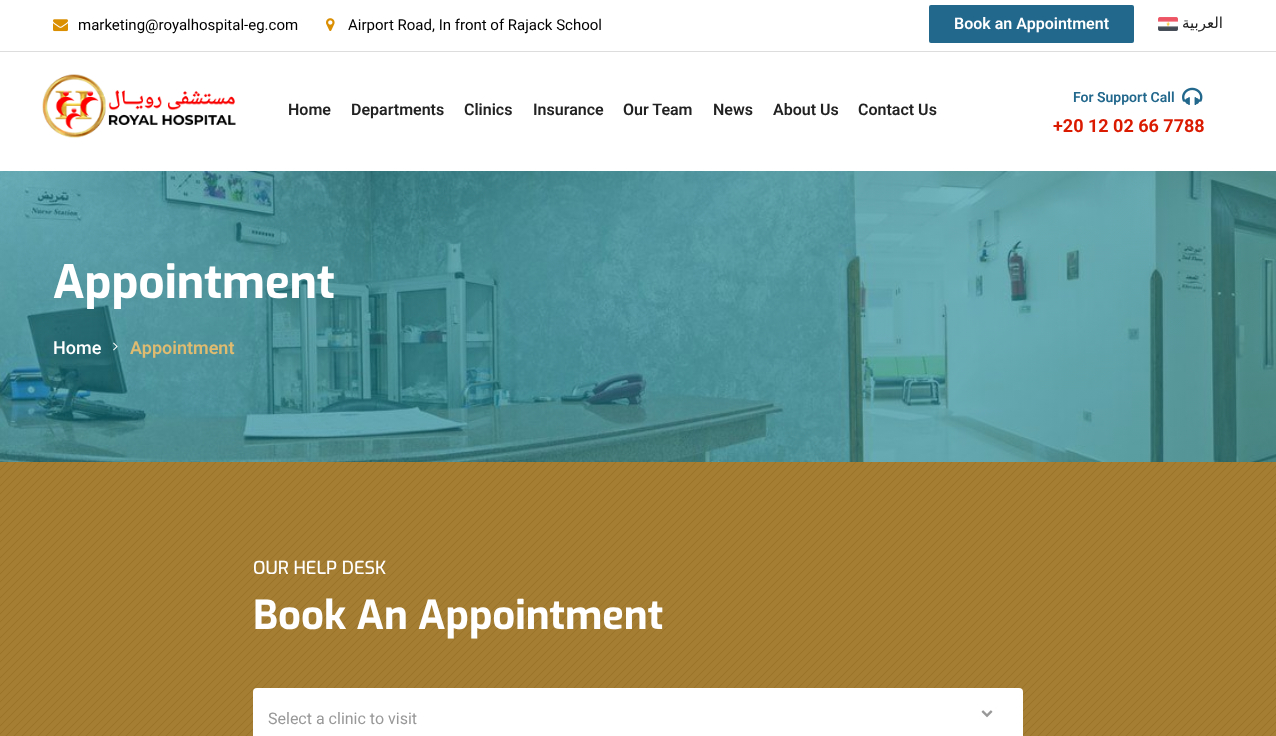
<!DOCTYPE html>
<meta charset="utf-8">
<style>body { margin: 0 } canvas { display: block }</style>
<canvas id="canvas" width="1276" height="736"></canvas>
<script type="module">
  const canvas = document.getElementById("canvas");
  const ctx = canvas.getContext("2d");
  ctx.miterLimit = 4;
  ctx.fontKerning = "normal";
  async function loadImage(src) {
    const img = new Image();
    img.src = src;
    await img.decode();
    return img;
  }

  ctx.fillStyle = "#ffffff";
  ctx.fillRect(0, 0, 1276, 736);
  ctx.fillStyle = "#dddddd";
  ctx.fillRect(0, 51, 1276, 1);
  ctx.drawImage(await loadImage("img1.png"), 53, 19, 15, 13);
  ctx.font = "15px Roboto";
  ctx.fillStyle = "#000000";
  ctx.fillText("marketing@royalhospital-eg.com", 78, 30);
  ctx.drawImage(await loadImage("img2.png"), 326, 18, 9, 13);
  ctx.fillText("Airport Road, In front of Rajack School", 348, 30);
  ctx.fillStyle = "#22678c";
  ctx.beginPath();
  ctx.roundRect(929, 5, 205, 38, 2);
  ctx.fill();
  ctx.font = "600 16px Roboto";
  ctx.fillStyle = "#ffffff";
  ctx.fillText("Book an Appointment", 954, 29);
  ctx.drawImage(await loadImage("img3.png"), 1158, 17, 20, 14);
  ctx.direction = "rtl";
  ctx.font = "15px DejaVu Sans";
  ctx.fillStyle = "#222222";
  ctx.fillText("العربية", 1223, 28);
  ctx.drawImage(await loadImage("img4.png"), 42, 74, 194, 64);
  ctx.direction = "ltr";
  ctx.font = "600 16px Roboto";
  ctx.fillText("Home", 288, 115);
  ctx.fillText("Departments", 351, 115);
  ctx.fillText("Clinics", 464, 115);
  ctx.fillText("Insurance", 533, 115);
  ctx.fillText("Our Team", 623, 115);
  ctx.fillText("News", 713, 115);
  ctx.fillText("About Us", 773, 115);
  ctx.fillText("Contact Us", 858, 115);
  ctx.font = "600 14px Roboto";
  ctx.fillStyle = "#22678c";
  ctx.fillText("For Support Call", 1073, 102);
  ctx.drawImage(await loadImage("img5.png"), 1182, 87, 21, 18);
  ctx.font = "bold 18px Roboto";
  ctx.fillStyle = "#da1b02";
  ctx.fillText("+20 12 02 66 7788", 1053, 132);
  ctx.drawImage(await loadImage("img6.png"), 0, 171, 1276, 291);
  ctx.font = "bold 46px Exo";
  ctx.fillStyle = "#ffffff";
  ctx.fillText("Appointment", 53, 298);
  ctx.font = "500 18px Roboto";
  ctx.fillText("Home", 53, 354);
  ctx.drawImage(await loadImage("img7.png"), 113, 342, 5, 9);
  ctx.font = "600 18px Roboto";
  ctx.fillStyle = "#debb70";
  ctx.fillText("Appointment", 130, 354);
  ctx.fillStyle = "#a1782a";
  ctx.fillRect(0, 462, 1276, 274);
  ctx.drawImage(await loadImage("img8.png"), 0, 462, 1276, 274);
  ctx.font = "500 18px Exo";
  ctx.fillStyle = "#ffffff";
  ctx.fillText("OUR HELP DESK", 253, 574);
  ctx.font = "bold 40px Exo";
  ctx.fillText("Book An Appointment", 253, 629);
  ctx.beginPath();
  ctx.roundRect(253, 688, 770, 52, 4);
  ctx.fill();
  ctx.font = "16px Roboto";
  ctx.fillStyle = "#989898";
  ctx.fillText("Select a clinic to visit", 268, 724);
  ctx.drawImage(await loadImage("img9.png"), 981, 710, 12, 8);
</script>
